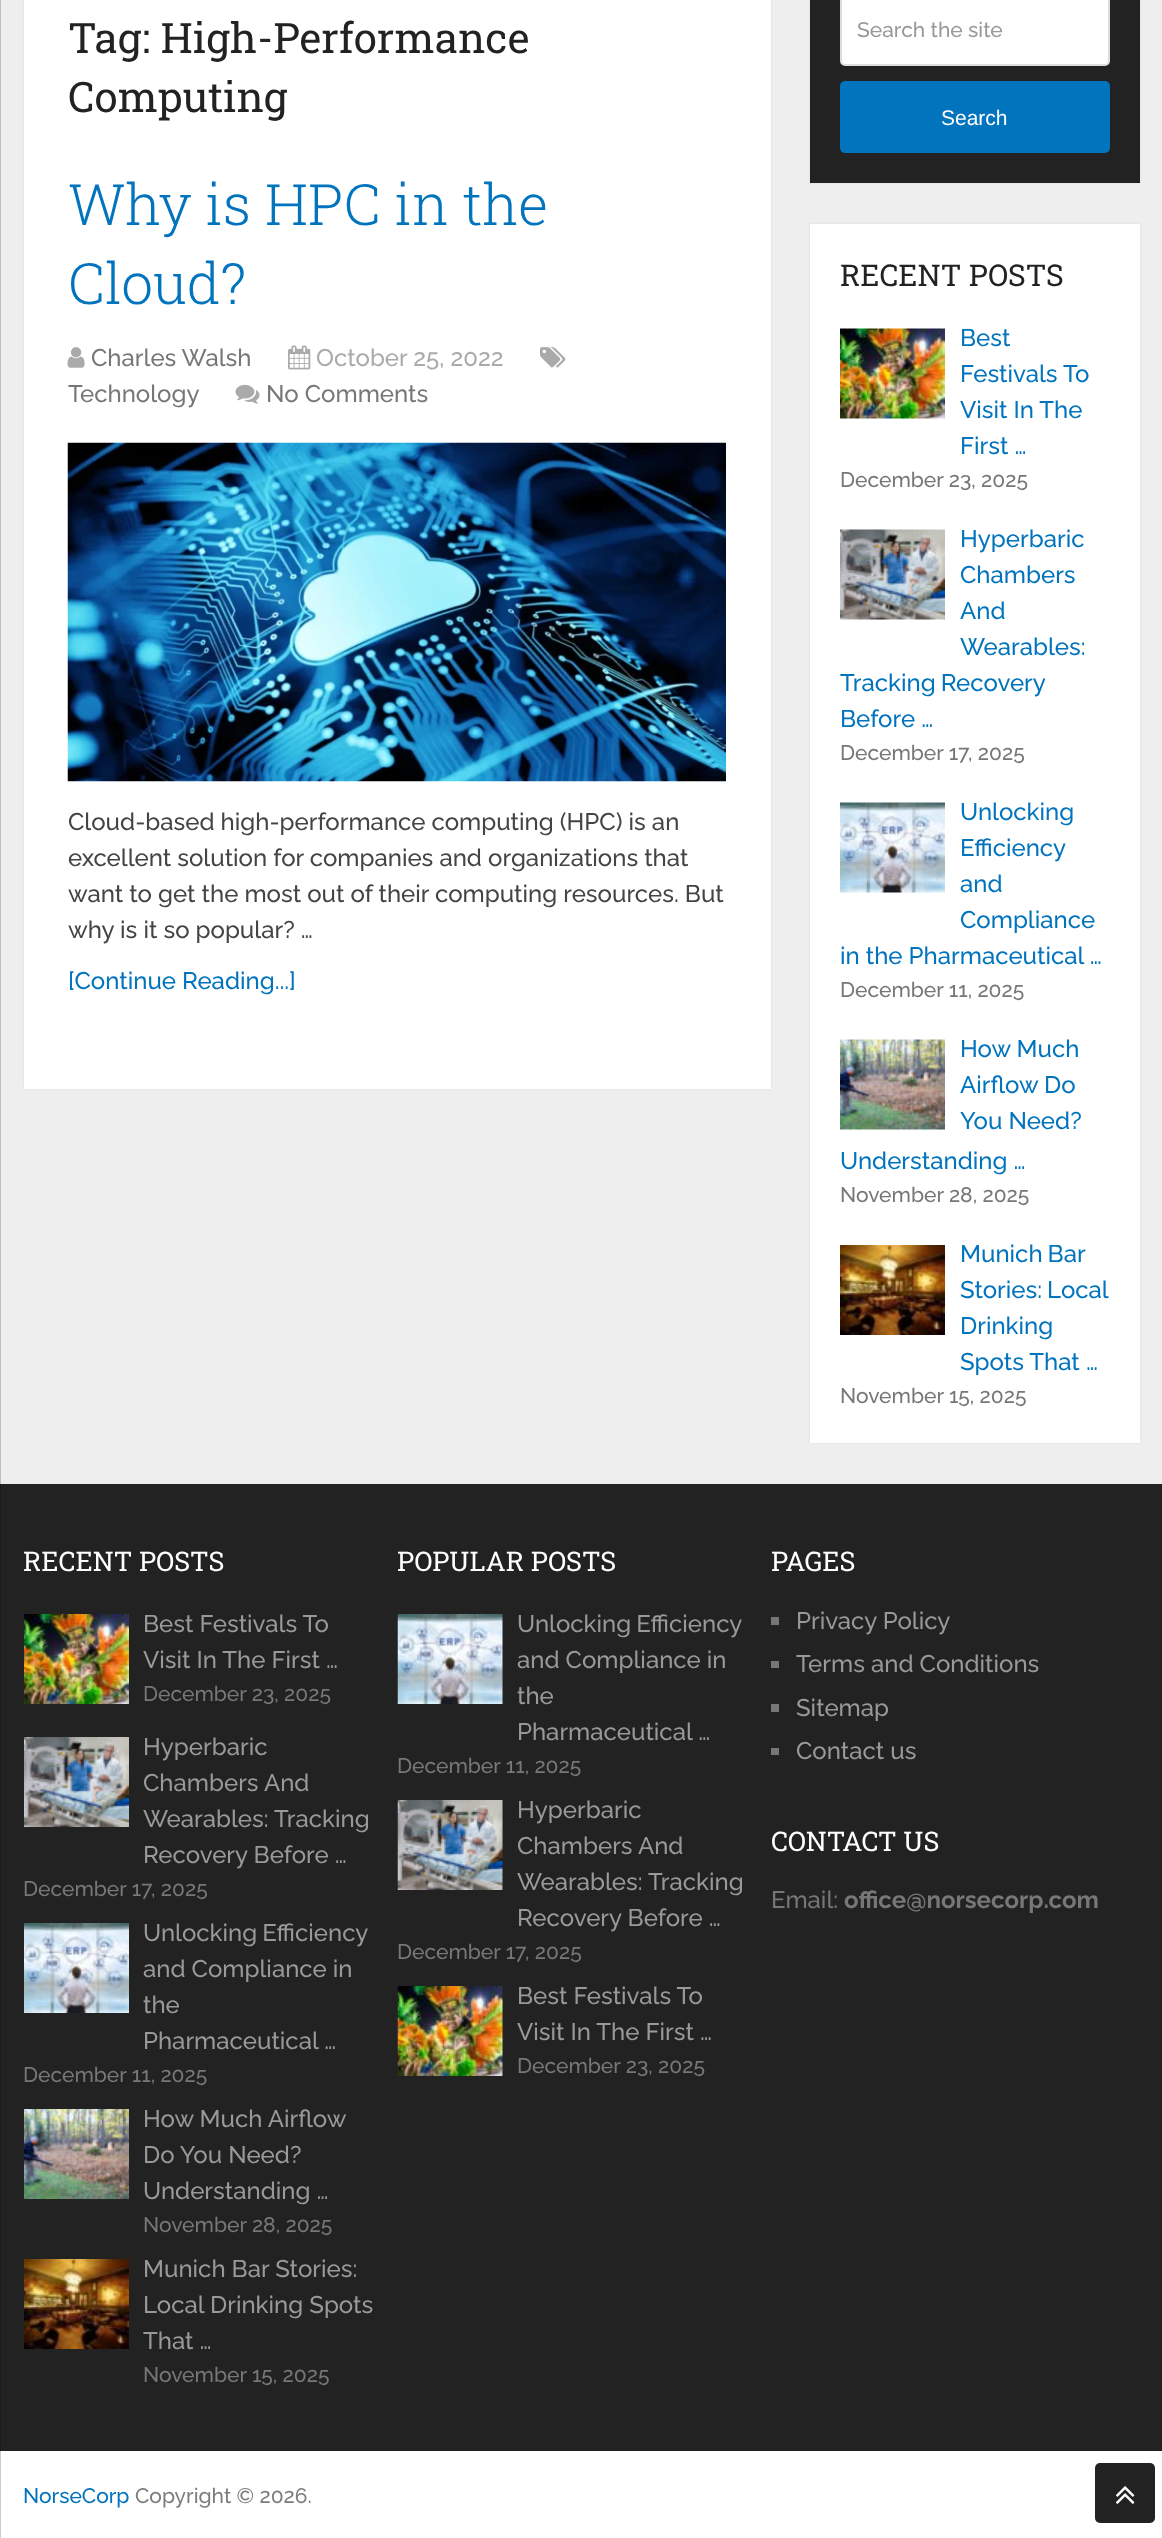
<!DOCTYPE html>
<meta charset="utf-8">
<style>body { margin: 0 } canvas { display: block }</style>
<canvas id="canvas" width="1162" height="2538"></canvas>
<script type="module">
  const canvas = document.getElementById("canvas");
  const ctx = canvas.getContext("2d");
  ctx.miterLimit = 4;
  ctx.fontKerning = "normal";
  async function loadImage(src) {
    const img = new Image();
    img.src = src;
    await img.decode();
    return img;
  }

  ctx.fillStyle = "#eeeeee";
  ctx.fillRect(0, 0, 1162, 2538);
  ctx.fillStyle = "#bebebe";
  ctx.fillRect(0, 0, 1, 1484);
  ctx.fillStyle = "rgba(50, 50, 50, 0.1)";
  ctx.filter = "blur(1px)";
  ctx.beginPath();
  ctx.rect(24, -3, 747, 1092);
  ctx.fill();
  ctx.filter = "none";
  ctx.fillStyle = "#ffffff";
  ctx.fillRect(24, 0, 747, 1089);
  ctx.font = "42px Roboto Slab";
  ctx.fillStyle = "#222222";
  ctx.fillText("Tag: High-Performance", 68, 53);
  ctx.fillText("Computing", 68, 112);
  ctx.font = "300 57px Roboto Slab";
  ctx.fillStyle = "#0274be";
  ctx.fillText("Why is HPC in the", 68, 225);
  ctx.fillText("Cloud?", 68, 304);
  ctx.drawImage(await loadImage("img1.png"), 67, 347, 18, 21);
  ctx.font = "500 24px Raleway";
  ctx.fillStyle = "#777777";
  ctx.fillText("Charles Walsh", 91, 366);
  ctx.drawImage(await loadImage("img2.png"), 288, 345, 23, 25);
  ctx.fillStyle = "#aaaaaa";
  ctx.fillText("October 25, 2022", 316, 366);
  ctx.drawImage(await loadImage("img3.png"), 540, 347, 26, 21);
  ctx.fillStyle = "#777777";
  ctx.fillText("Technology", 68, 402);
  ctx.drawImage(await loadImage("img4.png"), 235, 384, 25, 20);
  ctx.fillText("No Comments", 266, 402);
  ctx.drawImage(await loadImage("img5.png"), 67, 442, 659, 340);
  ctx.fillStyle = "#444444";
  ctx.fillText("Cloud-based high-performance computing (HPC) is an", 68, 830);
  ctx.fillText("excellent solution for companies and organizations that", 68, 866);
  ctx.fillText("want to get the most out of their computing resources. But", 68, 902);
  ctx.fillText("why is it so popular? …", 68, 938);
  ctx.fillStyle = "#0274be";
  ctx.fillText("[Continue Reading...]", 68, 989);
  ctx.fillStyle = "rgba(50, 50, 50, 0.1)";
  ctx.filter = "blur(1px)";
  ctx.beginPath();
  ctx.rect(810, -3, 330, 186);
  ctx.fill();
  ctx.filter = "none";
  ctx.fillStyle = "#222222";
  ctx.fillRect(810, 0, 330, 183);
  ctx.fillStyle = "#ffffff";
  ctx.beginPath();
  ctx.roundRect(841, -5, 268, 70, 4);
  ctx.fill();
  ctx.strokeStyle = "#dddddd";
  ctx.lineWidth = 2;
  ctx.stroke();
  ctx.font = "500 21px Raleway";
  ctx.fillStyle = "#999999";
  ctx.fillText("Search the site", 857, 37);
  ctx.fillStyle = "#0274be";
  ctx.beginPath();
  ctx.roundRect(840, 81, 270, 72, 5);
  ctx.fill();
  ctx.font = "21px Liberation Sans";
  ctx.fillStyle = "#ffffff";
  ctx.fillText("Search", 941, 125);
  ctx.fillStyle = "rgba(50, 50, 50, 0.1)";
  ctx.filter = "blur(1px)";
  ctx.beginPath();
  ctx.rect(810, 224, 330, 1219);
  ctx.fill();
  ctx.filter = "none";
  ctx.fillStyle = "#ffffff";
  ctx.fillRect(810, 224, 330, 1219);
  ctx.font = "30px Roboto Slab";
  ctx.fillStyle = "#222222";
  ctx.fillText("RECENT POSTS", 840, 286);
  ctx.drawImage(await loadImage("img6.png"), 840, 328, 105, 91);
  ctx.font = "500 24px Raleway";
  ctx.fillStyle = "#0274be";
  ctx.fillText("Best", 960, 346);
  ctx.fillText("Festivals To", 960, 382);
  ctx.fillText("Visit In The", 960, 418);
  ctx.fillText("First …", 960, 454);
  ctx.font = "500 21px Raleway";
  ctx.fillStyle = "#777777";
  ctx.fillText("December 23, 2025", 840, 487);
  ctx.drawImage(await loadImage("img7.png"), 840, 529, 105, 91);
  ctx.font = "500 24px Raleway";
  ctx.fillStyle = "#0274be";
  ctx.fillText("Hyperbaric", 960, 547);
  ctx.fillText("Chambers", 960, 583);
  ctx.fillText("And", 960, 619);
  ctx.fillText("Wearables:", 960, 655);
  ctx.wordSpacing = "-1px";
  ctx.fillText("Tracking Recovery", 840, 691);
  ctx.wordSpacing = "0px";
  ctx.fillText("Before …", 840, 727);
  ctx.font = "500 21px Raleway";
  ctx.fillStyle = "#777777";
  ctx.fillText("December 17, 2025", 840, 760);
  ctx.drawImage(await loadImage("img8.png"), 840, 802, 105, 91);
  ctx.font = "500 24px Raleway";
  ctx.fillStyle = "#0274be";
  ctx.fillText("Unlocking", 960, 820);
  ctx.fillText("Efficiency", 960, 856);
  ctx.fillText("and", 960, 892);
  ctx.fillText("Compliance", 960, 928);
  ctx.fillText("in the Pharmaceutical …", 840, 964);
  ctx.font = "500 21px Raleway";
  ctx.fillStyle = "#777777";
  ctx.fillText("December 11, 2025", 840, 997);
  ctx.drawImage(await loadImage("img9.png"), 840, 1039, 105, 91);
  ctx.font = "500 24px Raleway";
  ctx.fillStyle = "#0274be";
  ctx.fillText("How Much", 960, 1057);
  ctx.fillText("Airflow Do", 960, 1093);
  ctx.fillText("You Need?", 960, 1129);
  ctx.fillText("Understanding …", 840, 1169);
  ctx.font = "500 21px Raleway";
  ctx.fillStyle = "#777777";
  ctx.fillText("November 28, 2025", 840, 1202);
  ctx.wordSpacing = "-1px";
  ctx.font = "500 24px Raleway";
  ctx.fillStyle = "#0274be";
  ctx.fillText("Munich Bar", 960, 1262);
  ctx.fillText("Stories: Local", 960, 1298);
  ctx.wordSpacing = "0px";
  ctx.fillText("Drinking", 960, 1334);
  ctx.fillText("Spots That …", 960, 1370);
  ctx.font = "500 21px Raleway";
  ctx.fillStyle = "#777777";
  ctx.fillText("November 15, 2025", 840, 1403);
  ctx.drawImage(await loadImage("img10.png"), 840, 1245, 105, 90);
  ctx.fillStyle = "#222222";
  ctx.fillRect(1, 1484, 1161, 967);
  ctx.fillStyle = "#1b1b1b";
  ctx.fillRect(0, 1484, 1, 967);
  ctx.font = "27px Roboto Slab";
  ctx.fillStyle = "#ffffff";
  ctx.fillText("RECENT POSTS", 23, 1571);
  ctx.drawImage(await loadImage("img11.png"), 24, 1614, 105, 90);
  ctx.font = "500 24px Raleway";
  ctx.fillStyle = "#999999";
  ctx.fillText("Best Festivals To", 143, 1632);
  ctx.fillText("Visit In The First …", 143, 1668);
  ctx.font = "500 21px Raleway";
  ctx.fillStyle = "#777777";
  ctx.fillText("December 23, 2025", 143, 1701);
  ctx.drawImage(await loadImage("img12.png"), 24, 1737, 105, 90);
  ctx.font = "500 24px Raleway";
  ctx.fillStyle = "#999999";
  ctx.fillText("Hyperbaric", 143, 1755);
  ctx.fillText("Chambers And", 143, 1791);
  ctx.fillText("Wearables: Tracking", 143, 1827);
  ctx.fillText("Recovery Before …", 143, 1863);
  ctx.font = "500 21px Raleway";
  ctx.fillStyle = "#777777";
  ctx.fillText("December 17, 2025", 23, 1896);
  ctx.drawImage(await loadImage("img13.png"), 24, 1923, 105, 90);
  ctx.wordSpacing = "-1px";
  ctx.font = "500 24px Raleway";
  ctx.fillStyle = "#999999";
  ctx.fillText("Unlocking Efficiency", 143, 1941);
  ctx.wordSpacing = "0px";
  ctx.fillText("and Compliance in", 143, 1977);
  ctx.fillText("the", 143, 2013);
  ctx.fillText("Pharmaceutical …", 143, 2049);
  ctx.font = "500 21px Raleway";
  ctx.fillStyle = "#777777";
  ctx.fillText("December 11, 2025", 23, 2082);
  ctx.drawImage(await loadImage("img14.png"), 24, 2109, 105, 90);
  ctx.font = "500 24px Raleway";
  ctx.fillStyle = "#999999";
  ctx.fillText("How Much Airflow", 143, 2127);
  ctx.fillText("Do You Need?", 143, 2163);
  ctx.fillText("Understanding …", 143, 2199);
  ctx.font = "500 21px Raleway";
  ctx.fillStyle = "#777777";
  ctx.fillText("November 28, 2025", 143, 2232);
  ctx.drawImage(await loadImage("img10.png"), 24, 2259, 105, 90);
  ctx.font = "500 24px Raleway";
  ctx.fillStyle = "#999999";
  ctx.fillText("Munich Bar Stories:", 143, 2277);
  ctx.fillText("Local Drinking Spots", 143, 2313);
  ctx.fillText("That …", 143, 2349);
  ctx.font = "500 21px Raleway";
  ctx.fillStyle = "#777777";
  ctx.fillText("November 15, 2025", 143, 2382);
  ctx.font = "27px Roboto Slab";
  ctx.fillStyle = "#ffffff";
  ctx.fillText("POPULAR POSTS", 397, 1571);
  ctx.drawImage(await loadImage("img15.png"), 397, 1614, 106, 90);
  ctx.wordSpacing = "-1px";
  ctx.font = "500 24px Raleway";
  ctx.fillStyle = "#999999";
  ctx.fillText("Unlocking Efficiency", 517, 1632);
  ctx.wordSpacing = "0px";
  ctx.fillText("and Compliance in", 517, 1668);
  ctx.fillText("the", 517, 1704);
  ctx.fillText("Pharmaceutical …", 517, 1740);
  ctx.font = "500 21px Raleway";
  ctx.fillStyle = "#777777";
  ctx.fillText("December 11, 2025", 397, 1773);
  ctx.drawImage(await loadImage("img16.png"), 397, 1800, 106, 90);
  ctx.font = "500 24px Raleway";
  ctx.fillStyle = "#999999";
  ctx.fillText("Hyperbaric", 517, 1818);
  ctx.fillText("Chambers And", 517, 1854);
  ctx.fillText("Wearables: Tracking", 517, 1890);
  ctx.fillText("Recovery Before …", 517, 1926);
  ctx.font = "500 21px Raleway";
  ctx.fillStyle = "#777777";
  ctx.fillText("December 17, 2025", 397, 1959);
  ctx.drawImage(await loadImage("img17.png"), 397, 1986, 106, 90);
  ctx.font = "500 24px Raleway";
  ctx.fillStyle = "#999999";
  ctx.fillText("Best Festivals To", 517, 2004);
  ctx.fillText("Visit In The First …", 517, 2040);
  ctx.font = "500 21px Raleway";
  ctx.fillStyle = "#777777";
  ctx.fillText("December 23, 2025", 517, 2073);
  ctx.font = "27px Roboto Slab";
  ctx.fillStyle = "#ffffff";
  ctx.fillText("PAGES", 771, 1571);
  ctx.fillStyle = "#777777";
  ctx.fillRect(771, 1617, 8, 8);
  ctx.font = "500 24px Raleway";
  ctx.fillStyle = "#999999";
  ctx.fillText("Privacy Policy", 796, 1629);
  ctx.fillStyle = "#777777";
  ctx.fillRect(771, 1661, 8, 7);
  ctx.fillStyle = "#999999";
  ctx.fillText("Terms and Conditions", 796, 1672);
  ctx.fillStyle = "#777777";
  ctx.fillRect(771, 1704, 8, 8);
  ctx.fillStyle = "#999999";
  ctx.fillText("Sitemap", 796, 1716);
  ctx.fillStyle = "#777777";
  ctx.fillRect(771, 1748, 8, 7);
  ctx.fillStyle = "#999999";
  ctx.fillText("Contact us", 796, 1759);
  ctx.font = "27px Roboto Slab";
  ctx.fillStyle = "#ffffff";
  ctx.fillText("CONTACT US", 771, 1851);
  ctx.font = "500 24px Raleway";
  ctx.fillStyle = "#777777";
  ctx.fillText("Email:", 771, 1908);
  ctx.font = "bold 24px Raleway";
  ctx.fillText("office@norsecorp.com", 844, 1908);
  ctx.fillStyle = "#ffffff";
  ctx.fillRect(1, 2451, 1161, 87);
  ctx.fillStyle = "#cccccc";
  ctx.fillRect(0, 2451, 1, 87);
  ctx.font = "500 21px Raleway";
  ctx.fillStyle = "#0274be";
  ctx.fillText("NorseCorp", 23, 2503);
  ctx.fillStyle = "#7e7d7d";
  ctx.fillText("Copyright © 2026.", 135, 2503);
  ctx.fillStyle = "#222222";
  ctx.beginPath();
  ctx.roundRect(1095, 2463, 60, 60, 5);
  ctx.fill();
  ctx.drawImage(await loadImage("img18.png"), 1116, 2486, 19, 18);
</script>
